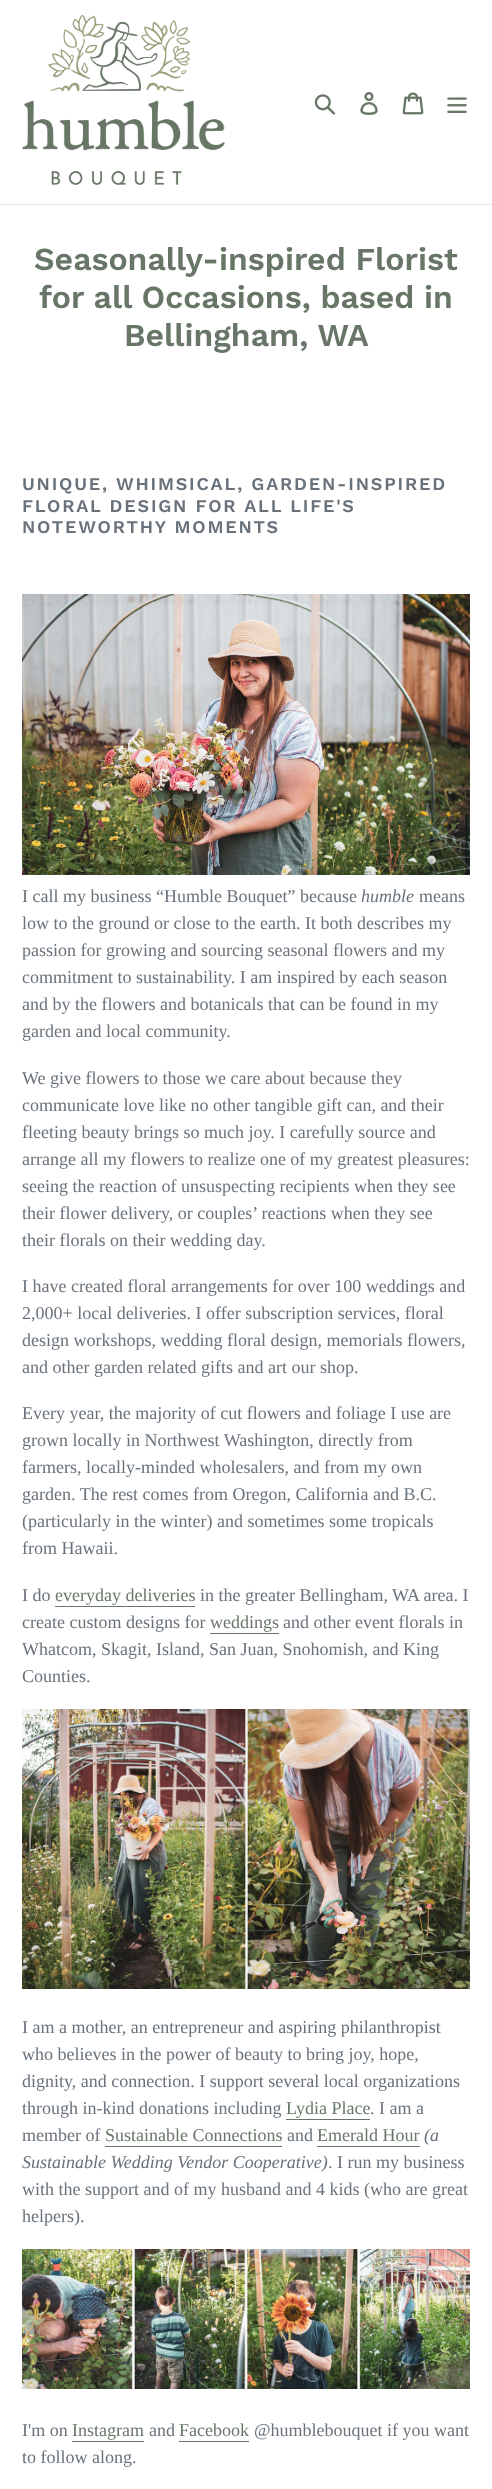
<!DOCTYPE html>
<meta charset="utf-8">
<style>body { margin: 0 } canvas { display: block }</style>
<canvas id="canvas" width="492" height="2489"></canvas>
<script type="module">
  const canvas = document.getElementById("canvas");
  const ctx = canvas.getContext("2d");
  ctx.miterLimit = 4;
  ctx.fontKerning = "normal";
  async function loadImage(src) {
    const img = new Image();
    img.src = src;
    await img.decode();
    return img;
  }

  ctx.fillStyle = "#ffffff";
  ctx.fillRect(0, 0, 492, 2489);
  ctx.fillStyle = "#e8e9eb";
  ctx.fillRect(0, 204, 492, 1);
  ctx.drawImage(await loadImage("img1.png"), 22, 15, 203, 170);
  ctx.drawImage(await loadImage("img2.png"), 314, 94, 22, 21);
  ctx.drawImage(await loadImage("img3.png"), 360, 92, 18, 23);
  ctx.drawImage(await loadImage("img4.png"), 402, 92, 22, 23);
  ctx.drawImage(await loadImage("img5.png"), 447, 97, 20, 16);
  ctx.font = "600 32px Work Sans";
  ctx.fillStyle = "#687667";
  ctx.fillText("Seasonally-inspired Florist", 34, 270);
  ctx.fillText("for all Occasions, based in", 39, 308);
  ctx.fillText("Bellingham, WA", 124, 346);
  ctx.letterSpacing = "1.8px";
  ctx.font = "600 18px Work Sans";
  ctx.fillStyle = "#69727b";
  ctx.fillText("UNIQUE, WHIMSICAL, GARDEN-INSPIRED", 22, 490);
  ctx.fillText("FLORAL DESIGN FOR ALL LIFE'S", 22, 512);
  ctx.fillText("NOTEWORTHY MOMENTS", 22, 533);
  ctx.drawImage(await loadImage("img6.png"), 22, 594, 448, 281);
  ctx.letterSpacing = "0px";
  ctx.font = "18px Liberation Serif";
  ctx.fillText("I call my business “Humble Bouquet” because", 22, 902);
  ctx.font = "italic 18px Liberation Serif";
  ctx.fillText("humble", 361, 902);
  ctx.font = "18px Liberation Serif";
  ctx.fillText("means", 419, 902);
  ctx.fillText("low to the ground or close to the earth. It both describes my", 22, 929);
  ctx.fillText("passion for growing and sourcing seasonal flowers and my", 22, 956);
  ctx.fillText("commitment to sustainability. I am inspired by each season", 22, 983);
  ctx.fillText("and by the flowers and botanicals that can be found in my", 22, 1010);
  ctx.fillText("garden and local community.", 22, 1037);
  ctx.fillText("We give flowers to those we care about because they", 22, 1084);
  ctx.fillText("communicate love like no other tangible gift can, and their", 22, 1111);
  ctx.fillText("fleeting beauty brings so much joy. I carefully source and", 22, 1138);
  ctx.fillText("arrange all my flowers to realize one of my greatest pleasures:", 22, 1165);
  ctx.fillText("seeing the reaction of unsuspecting recipients when they see", 22, 1192);
  ctx.fillText("their flower delivery, or couples’ reactions when they see", 22, 1219);
  ctx.fillText("their florals on their wedding day.", 22, 1246);
  ctx.fillText("I have created floral arrangements for over 100 weddings and", 22, 1292);
  ctx.fillText("2,000+ local deliveries. I offer subscription services, floral", 22, 1319);
  ctx.fillText("design workshops, wedding floral design, memorials flowers,", 22, 1346);
  ctx.fillText("and other garden related gifts and art our shop.", 22, 1373);
  ctx.fillText("Every year, the majority of cut flowers and foliage I use are", 22, 1419);
  ctx.fillText("grown locally in Northwest Washington, directly from", 22, 1446);
  ctx.fillText("farmers, locally-minded wholesalers, and from my own", 22, 1473);
  ctx.fillText("garden. The rest comes from Oregon, California and B.C.", 22, 1500);
  ctx.fillText("(particularly in the winter) and sometimes some tropicals", 22, 1527);
  ctx.fillText("from Hawaii.", 22, 1554);
  ctx.fillText("I do", 22, 1601);
  ctx.fillStyle = "#687667";
  ctx.fillText("everyday deliveries", 55, 1601);
  ctx.fillRect(55, 1606, 140, 1);
  ctx.fillStyle = "#69727b";
  ctx.fillText("in the greater Bellingham, WA area. I", 200, 1601);
  ctx.fillText("create custom designs for", 22, 1628);
  ctx.fillStyle = "#687667";
  ctx.fillText("weddings", 210, 1628);
  ctx.fillRect(210, 1633, 69, 1);
  ctx.fillStyle = "#69727b";
  ctx.fillText("and other event florals in", 283, 1628);
  ctx.fillText("Whatcom, Skagit, Island, San Juan, Snohomish, and King", 22, 1655);
  ctx.fillText("Counties.", 22, 1682);
  ctx.drawImage(await loadImage("img7.png"), 22, 1709, 448, 280);
  ctx.fillText("I am a mother, an entrepreneur and aspiring philanthropist", 22, 2033);
  ctx.fillText("who believes in the power of beauty to bring joy, hope,", 22, 2060);
  ctx.fillText("dignity, and connection. I support several local organizations", 22, 2087);
  ctx.fillText("through in-kind donations including", 22, 2114);
  ctx.fillStyle = "#687667";
  ctx.fillText("Lydia Place", 286, 2114);
  ctx.fillRect(286, 2119, 84, 1);
  ctx.fillStyle = "#69727b";
  ctx.fillText(". I am a", 370, 2114);
  ctx.fillText("member of", 22, 2141);
  ctx.fillStyle = "#687667";
  ctx.fillText("Sustainable Connections", 105, 2141);
  ctx.fillRect(105, 2146, 177, 1);
  ctx.fillStyle = "#69727b";
  ctx.fillText("and", 287, 2141);
  ctx.fillStyle = "#687667";
  ctx.fillText("Emerald Hour", 317, 2141);
  ctx.fillRect(317, 2146, 103, 1);
  ctx.font = "italic 18px Liberation Serif";
  ctx.fillStyle = "#69727b";
  ctx.fillText("(a", 424, 2141);
  ctx.fillText("Sustainable Wedding Vendor Cooperative)", 22, 2168);
  ctx.font = "18px Liberation Serif";
  ctx.fillText(". I run my business", 328, 2168);
  ctx.fillText("with the support and of my husband and 4 kids (who are great", 22, 2195);
  ctx.fillText("helpers).", 22, 2222);
  ctx.drawImage(await loadImage("img8.png"), 22, 2249, 448, 140);
  ctx.fillText("I'm on", 22, 2436);
  ctx.fillStyle = "#687667";
  ctx.fillText("Instagram", 72, 2436);
  ctx.fillRect(72, 2441, 72, 1);
  ctx.fillStyle = "#69727b";
  ctx.fillText("and", 149, 2436);
  ctx.fillStyle = "#687667";
  ctx.fillText("Facebook", 179, 2436);
  ctx.fillRect(179, 2441, 70, 1);
  ctx.fillStyle = "#69727b";
  ctx.fillText("@humblebouquet if you want", 254, 2436);
  ctx.fillText("to follow along.", 22, 2463);
</script>
